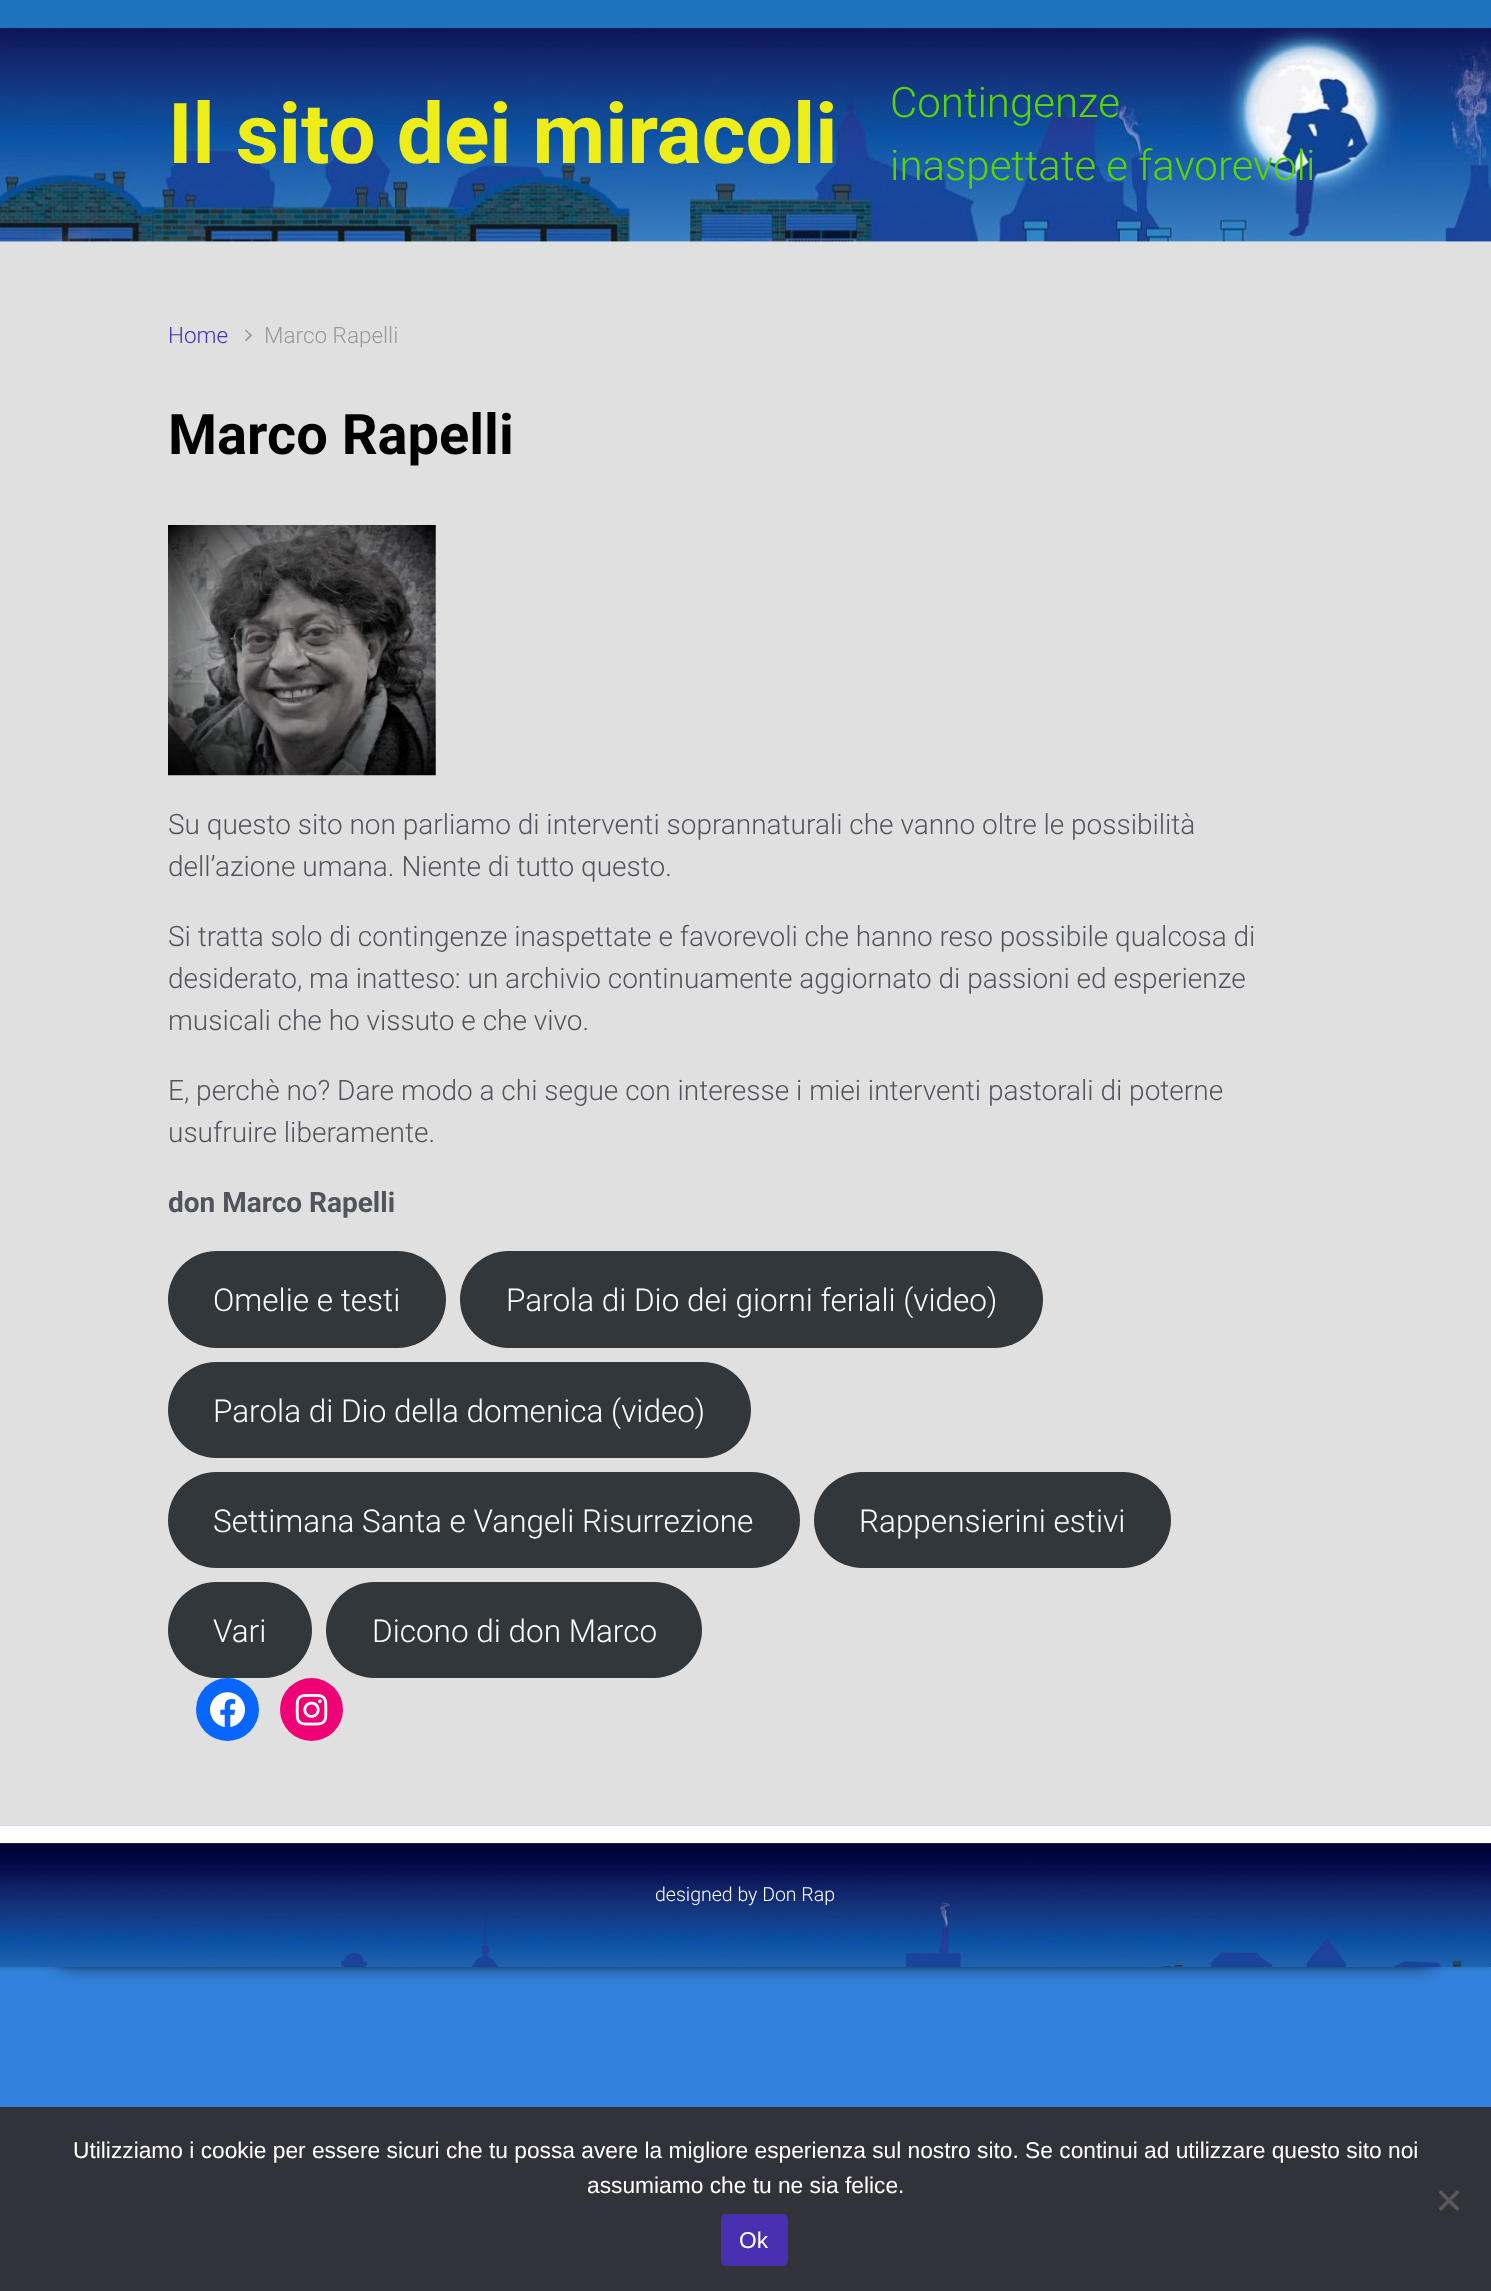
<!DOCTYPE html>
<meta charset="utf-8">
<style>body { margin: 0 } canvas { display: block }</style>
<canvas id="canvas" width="1491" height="2291"></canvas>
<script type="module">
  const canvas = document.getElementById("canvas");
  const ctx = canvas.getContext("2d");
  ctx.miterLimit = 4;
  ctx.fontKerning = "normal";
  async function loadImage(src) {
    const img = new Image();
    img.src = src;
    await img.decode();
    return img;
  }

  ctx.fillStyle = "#3281db";
  ctx.fillRect(0, 0, 1491, 2291);
  ctx.fillStyle = "rgba(0, 0, 0, 0.2)";
  ctx.filter = "blur(2.5px)";
  ctx.beginPath();
  ctx.rect(0, 0, 1491, 1967);
  ctx.fill();
  ctx.filter = "none";
  ctx.fillStyle = "#1e73be";
  ctx.fillRect(0, 0, 1491, 28);
  ctx.fillStyle = "#ffffff";
  ctx.fillRect(0, 241, 1491, 1);
  ctx.drawImage(await loadImage("img1.png"), 0, 28, 1491, 214);
  ctx.font = "bold 84px Roboto";
  ctx.fillStyle = "#eded1a";
  ctx.fillText("Il sito dei miracoli", 168, 163);
  ctx.font = "300 42px Roboto";
  ctx.fillStyle = "#59d600";
  ctx.fillText("Contingenze", 890, 117);
  ctx.fillText("inaspettate e favorevoli", 890, 180);
  ctx.fillStyle = "#e0e0e0";
  ctx.fillRect(0, 242, 1491, 1583);
  ctx.font = "300 22.5px Roboto";
  ctx.fillStyle = "#492fb1";
  ctx.fillText("Home", 168, 343);
  ctx.fillStyle = "#999999";
  ctx.beginPath();
  ctx.moveTo(245, 330.5);
  ctx.lineTo(246, 329.5);
  ctx.lineTo(252, 335.5);
  ctx.lineTo(251, 336.5);
  ctx.closePath();
  ctx.fill();
  ctx.beginPath();
  ctx.moveTo(245, 340);
  ctx.lineTo(251, 334);
  ctx.lineTo(252, 335.5);
  ctx.lineTo(246, 341.5);
  ctx.closePath();
  ctx.fill();
  ctx.fillText("Marco Rapelli", 264, 343);
  ctx.font = "bold 56px Roboto";
  ctx.fillStyle = "#000000";
  ctx.fillText("Marco Rapelli", 168, 454);
  ctx.drawImage(await loadImage("img2.png"), 168, 525, 268, 251);
  ctx.font = "300 28px Roboto";
  ctx.fillStyle = "#51545c";
  ctx.fillText("Su questo sito non parliamo di interventi soprannaturali che vanno oltre le possibilità", 168, 834);
  ctx.fillText("dell’azione umana. Niente di tutto questo.", 168, 876);
  ctx.fillText("Si tratta solo di contingenze inaspettate e favorevoli che hanno reso possibile qualcosa di", 168, 946);
  ctx.fillText("desiderato, ma inatteso: un archivio continuamente aggiornato di passioni ed esperienze", 168, 988);
  ctx.fillText("musicali che ho vissuto e che vivo.", 168, 1030);
  ctx.fillText("E, perchè no? Dare modo a chi segue con interesse i miei interventi pastorali di poterne", 168, 1100);
  ctx.fillText("usufruire liberamente.", 168, 1142);
  ctx.font = "bold 28px Roboto";
  ctx.fillText("don Marco Rapelli", 168, 1212);
  ctx.fillStyle = "#32373c";
  ctx.beginPath();
  ctx.roundRect(168, 1251, 278, 97, 48.5);
  ctx.fill();
  ctx.font = "300 31.5px Roboto";
  ctx.fillStyle = "#ffffff";
  ctx.fillText("Omelie e testi", 213, 1311);
  ctx.fillStyle = "#32373c";
  ctx.beginPath();
  ctx.roundRect(460, 1251, 583, 97, 48.5);
  ctx.fill();
  ctx.fillStyle = "#ffffff";
  ctx.fillText("Parola di Dio dei giorni feriali (video)", 506, 1311);
  ctx.fillStyle = "#32373c";
  ctx.beginPath();
  ctx.roundRect(168, 1362, 583, 96, 48);
  ctx.fill();
  ctx.fillStyle = "#ffffff";
  ctx.fillText("Parola di Dio della domenica (video)", 213, 1422);
  ctx.fillStyle = "#32373c";
  ctx.beginPath();
  ctx.roundRect(168, 1472, 632, 96, 48);
  ctx.fill();
  ctx.fillStyle = "#ffffff";
  ctx.fillText("Settimana Santa e Vangeli Risurrezione", 213, 1532);
  ctx.fillStyle = "#32373c";
  ctx.beginPath();
  ctx.roundRect(814, 1472, 357, 96, 48);
  ctx.fill();
  ctx.fillStyle = "#ffffff";
  ctx.fillText("Rappensierini estivi", 859, 1532);
  ctx.fillStyle = "#32373c";
  ctx.beginPath();
  ctx.roundRect(168, 1582, 144, 96, 48);
  ctx.fill();
  ctx.fillStyle = "#ffffff";
  ctx.fillText("Vari", 213, 1642);
  ctx.fillStyle = "#32373c";
  ctx.beginPath();
  ctx.roundRect(326, 1582, 376, 96, 48);
  ctx.fill();
  ctx.fillStyle = "#ffffff";
  ctx.fillText("Dicono di don Marco", 372, 1642);
  ctx.fillStyle = "#0866ff";
  ctx.beginPath();
  ctx.arc(227.5, 1709.5, 31.5, 0, Math.PI * 2);
  ctx.fill();
  ctx.drawImage(await loadImage("img3.png"), 210, 1692, 35, 35);
  ctx.fillStyle = "#f00075";
  ctx.beginPath();
  ctx.arc(311.5, 1709.5, 31.5, 0, Math.PI * 2);
  ctx.fill();
  ctx.drawImage(await loadImage("img4.png"), 295, 1694, 33, 32);
  ctx.fillStyle = "rgba(0, 0, 0, 0.6)";
  ctx.filter = "blur(8px)";
  ctx.beginPath();
  ctx.roundRect(53, 1897, 1386, 70, 18);
  ctx.fill();
  ctx.filter = "none";
  ctx.drawImage(await loadImage("img5.png"), 0, 1825, 1491, 142);
  ctx.font = "300 19.5px Roboto";
  ctx.fillStyle = "#ffffff";
  ctx.fillText("designed by Don Rap", 655, 1901);
  ctx.fillStyle = "#32323a";
  ctx.fillRect(0, 2107, 1491, 184);
  ctx.font = "22.75px Liberation Sans";
  ctx.fillStyle = "#ffffff";
  ctx.fillText("Utilizziamo i cookie per essere sicuri che tu possa avere la migliore esperienza sul nostro sito. Se continui ad utilizzare questo sito noi", 73, 2158);
  ctx.fillText("assumiamo che tu ne sia felice.", 587, 2193);
  ctx.fillStyle = "#59595d";
  ctx.beginPath();
  ctx.moveTo(1457, 2190);
  ctx.lineTo(1459.5, 2192.5);
  ctx.lineTo(1441, 2211);
  ctx.lineTo(1438.5, 2208.5);
  ctx.closePath();
  ctx.fill();
  ctx.beginPath();
  ctx.moveTo(1438.5, 2192.5);
  ctx.lineTo(1441, 2190);
  ctx.lineTo(1459.5, 2208.5);
  ctx.lineTo(1457, 2211);
  ctx.closePath();
  ctx.fill();
  ctx.fillStyle = "#492fb1";
  ctx.beginPath();
  ctx.roundRect(721, 2214, 67, 52, 5);
  ctx.fill();
  ctx.fillStyle = "#ffffff";
  ctx.fillText("Ok", 739, 2248);
</script>
